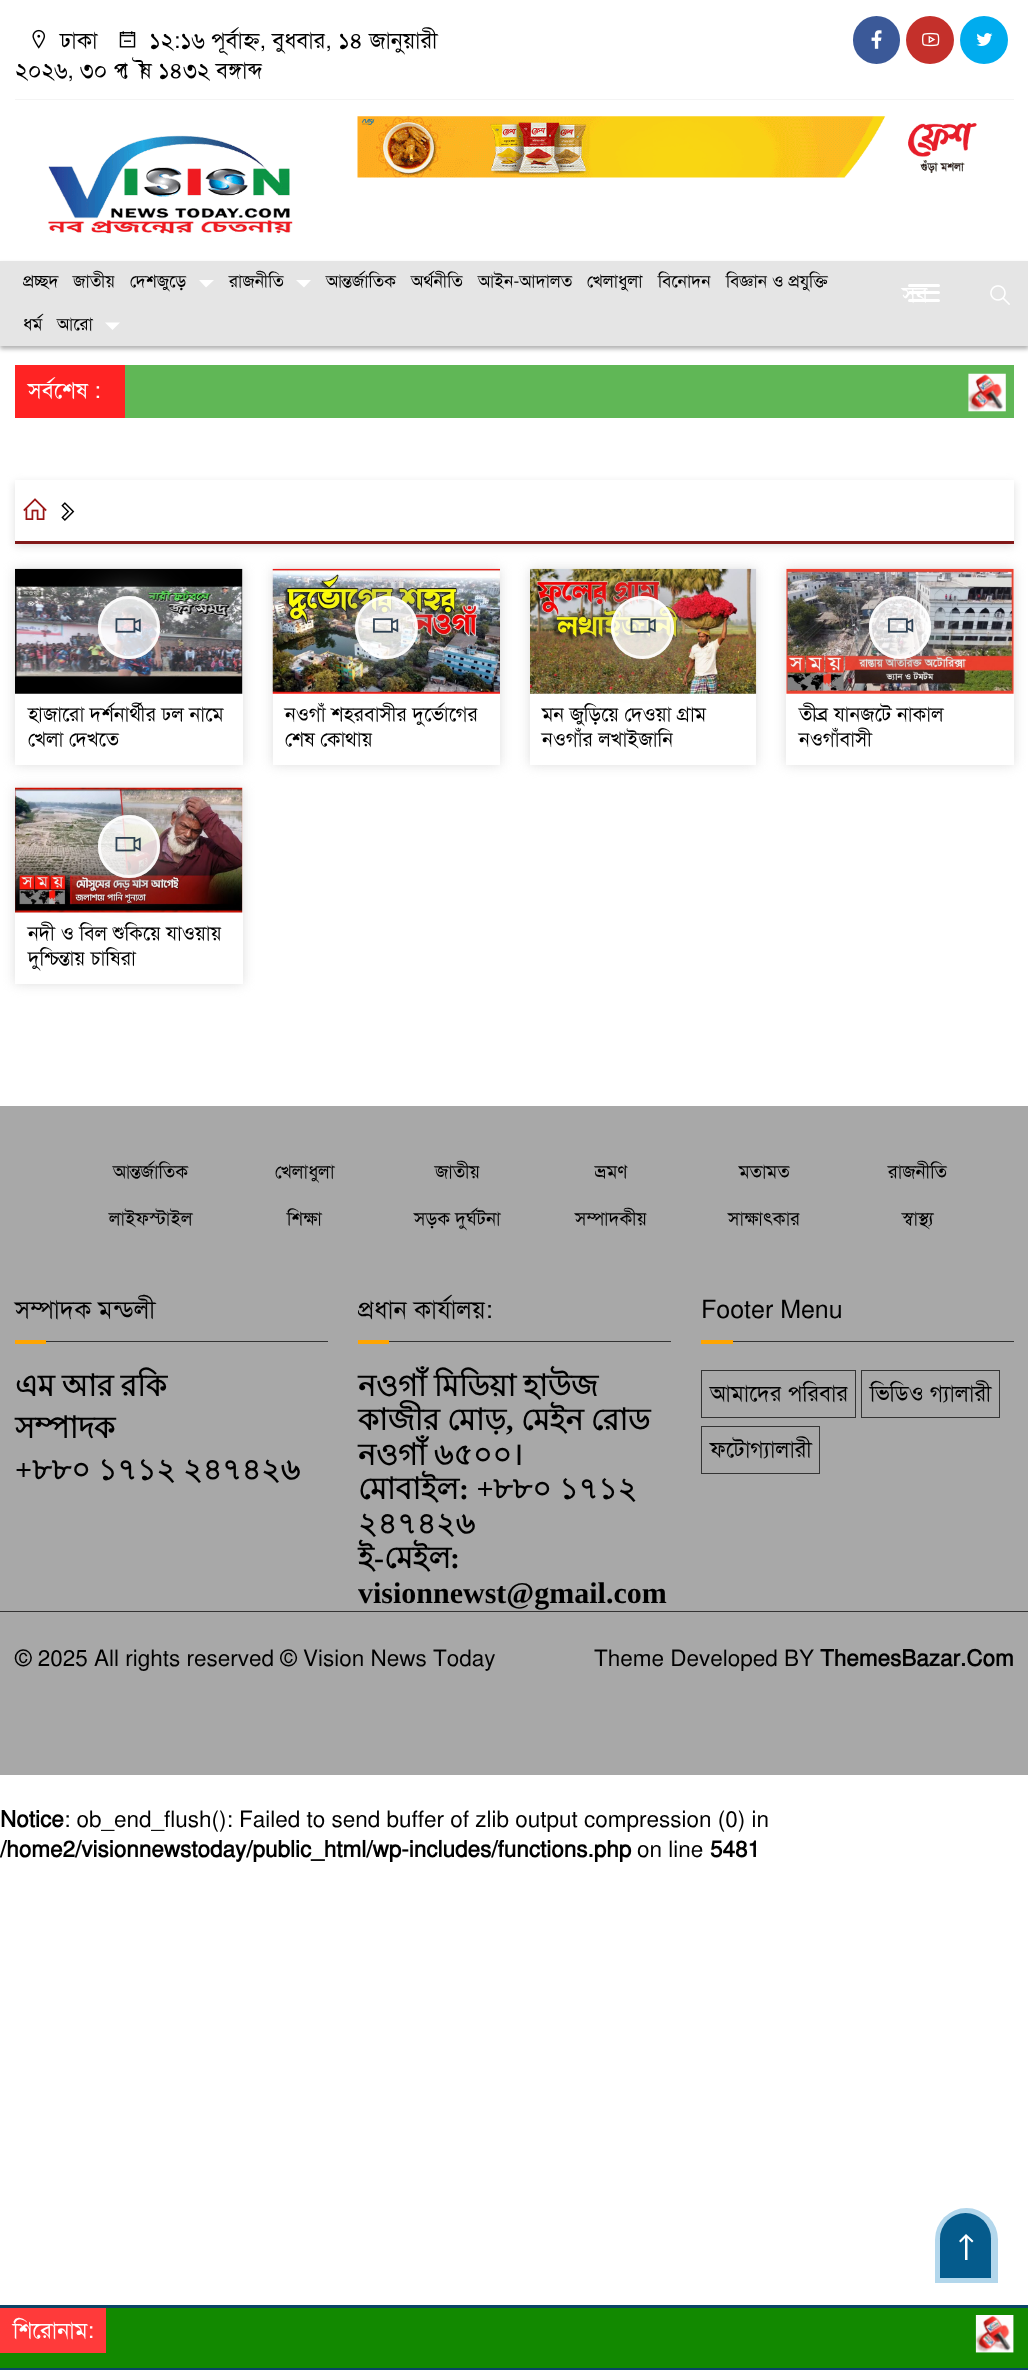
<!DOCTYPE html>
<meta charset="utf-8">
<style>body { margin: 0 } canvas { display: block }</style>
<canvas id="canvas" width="1028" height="2370"></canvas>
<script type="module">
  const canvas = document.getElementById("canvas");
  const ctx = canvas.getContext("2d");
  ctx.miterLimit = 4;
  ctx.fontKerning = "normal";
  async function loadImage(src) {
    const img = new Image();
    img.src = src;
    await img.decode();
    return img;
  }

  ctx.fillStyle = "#ffffff";
  ctx.fillRect(0, 0, 1028, 2370);
  ctx.fillStyle = "#f4f4f4";
  ctx.fillRect(15, 99, 999, 1);
  ctx.drawImage(await loadImage("img1.png"), 32, 29, 14, 20);
  ctx.font = "22.5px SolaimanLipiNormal";
  ctx.fillStyle = "#000000";
  ctx.fillText("ঢাকা", 60, 48);
  ctx.drawImage(await loadImage("img2.png"), 119, 31, 17, 17);
  ctx.fillText("১২:১৬ পূর্বাহ্ন, বুধবার, ১৪ জানুয়ারী", 149, 48);
  ctx.fillText("২০২৬, ৩০ পৌষ ১৪৩২ বঙ্গাব্দ", 15, 78);
  ctx.fillStyle = "#3b5998";
  ctx.beginPath();
  ctx.roundRect(853, 16, 47, 48, 23.5);
  ctx.fill();
  ctx.drawImage(await loadImage("img3.png"), 871, 30, 11, 19);
  ctx.fillStyle = "#c4302b";
  ctx.beginPath();
  ctx.arc(930, 40, 24, 0, Math.PI * 2);
  ctx.fill();
  ctx.drawImage(await loadImage("img4.png"), 922, 32, 18, 15);
  ctx.fillStyle = "#00acee";
  ctx.beginPath();
  ctx.arc(984, 40, 24, 0, Math.PI * 2);
  ctx.fill();
  ctx.drawImage(await loadImage("img5.png"), 976, 33, 17, 13);
  ctx.drawImage(await loadImage("img6.png"), 48, 135, 245, 99);
  ctx.drawImage(await loadImage("img7.png"), 357, 116, 620, 62);
  ctx.fillStyle = "rgba(0, 0, 0, 0.3)";
  ctx.filter = "blur(2px)";
  ctx.beginPath();
  ctx.rect(0, 264, 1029, 85);
  ctx.fill();
  ctx.filter = "none";
  ctx.fillStyle = "#e5e5e5";
  ctx.fillRect(0, 261, 1028, 85);
  ctx.font = "17.5px SolaimanLipiNormal";
  ctx.fillStyle = "#000000";
  ctx.fillText("প্রচ্ছদ", 23, 287);
  ctx.fillText("জাতীয়", 73, 287);
  ctx.fillText("দেশজুড়ে", 130, 287);
  ctx.fillStyle = "#ffffff";
  ctx.beginPath();
  ctx.moveTo(199, 280);
  ctx.lineTo(214, 280);
  ctx.lineTo(206, 287.5);
  ctx.closePath();
  ctx.fill();
  ctx.fillStyle = "#000000";
  ctx.fillText("রাজনীতি", 229, 287);
  ctx.fillStyle = "#ffffff";
  ctx.beginPath();
  ctx.moveTo(296, 280);
  ctx.lineTo(311, 280);
  ctx.lineTo(304, 287.5);
  ctx.closePath();
  ctx.fill();
  ctx.fillStyle = "#000000";
  ctx.fillText("আন্তর্জাতিক", 326, 287);
  ctx.fillText("অর্থনীতি", 411, 287);
  ctx.fillText("আইন-আদালত", 478, 287);
  ctx.fillText("খেলাধুলা", 587, 287);
  ctx.fillText("বিনোদন", 658, 287);
  ctx.fillText("বিজ্ঞান ও প্রযুক্তি", 726, 287);
  ctx.fillText("ধর্ম", 23, 330);
  ctx.fillText("আরো", 57, 330);
  ctx.fillStyle = "#ffffff";
  ctx.beginPath();
  ctx.moveTo(105, 322.5);
  ctx.lineTo(120, 322.5);
  ctx.lineTo(112.5, 330);
  ctx.closePath();
  ctx.fill();
  ctx.beginPath();
  ctx.roundRect(908, 284, 32, 3, 1.5);
  ctx.fill();
  ctx.beginPath();
  ctx.roundRect(908, 291, 32, 3, 1.5);
  ctx.fill();
  ctx.beginPath();
  ctx.roundRect(908, 299, 32, 3, 1.5);
  ctx.fill();
  ctx.font = "22.5px SolaimanLipiNormal";
  ctx.fillText("সব", 902, 302);
  ctx.drawImage(await loadImage("img8.png"), 990, 285, 20, 20);
  ctx.fillStyle = "#ff2323";
  ctx.fillRect(15, 365, 110, 53);
  ctx.fillStyle = "#ffffff";
  ctx.fillText("সর্বশেষ :", 28, 398);
  ctx.fillStyle = "#60b756";
  ctx.fillRect(125, 365, 889, 53);
  ctx.drawImage(await loadImage("img9.png"), 968, 373, 38, 39);
  ctx.fillStyle = "#dddddd";
  ctx.filter = "blur(4.5px)";
  ctx.beginPath();
  ctx.rect(15, 483, 999, 63);
  ctx.fill();
  ctx.filter = "none";
  ctx.fillStyle = "#ffffff";
  ctx.fillRect(15, 480, 999, 61);
  ctx.fillStyle = "#821818";
  ctx.fillRect(15, 541, 999, 3);
  ctx.drawImage(await loadImage("img10.png"), 23, 498, 24, 22);
  ctx.drawImage(await loadImage("img11.png"), 61, 502, 14, 19);
  ctx.fillStyle = "#dddddd";
  ctx.filter = "blur(6px)";
  ctx.beginPath();
  ctx.rect(15, 569, 228, 196);
  ctx.fill();
  ctx.filter = "none";
  ctx.fillStyle = "#ffffff";
  ctx.fillRect(15, 569, 228, 196);
  ctx.drawImage(await loadImage("img13.png"), 15, 568, 228, 126);
  ctx.save();
  ctx.beginPath();
  ctx.rect(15, 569, 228, 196);
  ctx.clip();
  ctx.beginPath();
  ctx.moveTo(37, 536);
  ctx.lineTo(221, 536);
  ctx.lineTo(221, 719);
  ctx.lineTo(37, 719);
  ctx.closePath();
  ctx.moveTo(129, 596);
  ctx.bezierCurveTo(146, 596, 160, 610, 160, 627);
  ctx.lineTo(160, 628);
  ctx.bezierCurveTo(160, 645, 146, 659, 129, 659);
  ctx.bezierCurveTo(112, 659, 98, 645, 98, 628);
  ctx.lineTo(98, 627);
  ctx.bezierCurveTo(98, 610, 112, 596, 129, 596);
  ctx.closePath();
  ctx.clip("evenodd");
  ctx.fillStyle = "rgba(128, 128, 128, 0.8)";
  ctx.filter = "blur(19px)";
  ctx.beginPath();
  ctx.roundRect(95, 594, 68, 67, 33.5);
  ctx.fill();
  ctx.filter = "none";
  ctx.restore();
  ctx.fillStyle = "rgba(255, 255, 255, 0.8)";
  ctx.beginPath();
  ctx.roundRect(98, 596, 62, 63, 31);
  ctx.fill();
  ctx.beginPath();
  ctx.roundRect(99.5, 597.5, 59, 60, 29.5);
  ctx.strokeStyle = "rgba(255, 255, 255, 0.8)";
  ctx.lineWidth = 3;
  ctx.stroke();
  ctx.drawImage(await loadImage("img12.png"), 115, 618, 26, 15);
  ctx.font = "20px SolaimanLipiNormal";
  ctx.fillStyle = "#000000";
  ctx.fillText("হাজারো দর্শনার্থীর ঢল নামে", 28, 721);
  ctx.fillText("খেলা দেখতে", 28, 746);
  ctx.save();
  ctx.beginPath();
  ctx.moveTo(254, 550);
  ctx.lineTo(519, 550);
  ctx.lineTo(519, 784);
  ctx.lineTo(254, 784);
  ctx.closePath();
  ctx.moveTo(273, 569);
  ctx.lineTo(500, 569);
  ctx.lineTo(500, 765);
  ctx.lineTo(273, 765);
  ctx.closePath();
  ctx.clip("evenodd");
  ctx.fillStyle = "#dddddd";
  ctx.filter = "blur(6px)";
  ctx.beginPath();
  ctx.rect(273, 569, 227, 196);
  ctx.fill();
  ctx.filter = "none";
  ctx.restore();
  ctx.drawImage(await loadImage("img15.png"), 272, 568, 228, 126);
  ctx.save();
  ctx.beginPath();
  ctx.rect(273, 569, 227, 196);
  ctx.clip();
  ctx.beginPath();
  ctx.moveTo(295, 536);
  ctx.lineTo(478, 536);
  ctx.lineTo(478, 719);
  ctx.lineTo(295, 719);
  ctx.closePath();
  ctx.moveTo(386.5, 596);
  ctx.bezierCurveTo(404, 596, 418, 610, 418, 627.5);
  ctx.bezierCurveTo(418, 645, 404, 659, 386.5, 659);
  ctx.bezierCurveTo(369, 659, 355, 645, 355, 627.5);
  ctx.bezierCurveTo(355, 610, 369, 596, 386.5, 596);
  ctx.closePath();
  ctx.clip("evenodd");
  ctx.fillStyle = "rgba(128, 128, 128, 0.8)";
  ctx.filter = "blur(19px)";
  ctx.beginPath();
  ctx.roundRect(353, 594, 67, 67, 33.5);
  ctx.fill();
  ctx.filter = "none";
  ctx.restore();
  ctx.fillStyle = "rgba(255, 255, 255, 0.8)";
  ctx.beginPath();
  ctx.arc(386.5, 627.5, 31.5, 0, Math.PI * 2);
  ctx.fill();
  ctx.beginPath();
  ctx.arc(386.5, 627.5, 30, 0, Math.PI * 2);
  ctx.stroke();
  ctx.drawImage(await loadImage("img14.png"), 373, 618, 26, 15);
  ctx.fillStyle = "#000000";
  ctx.fillText("নওগাঁ শহরবাসীর দুর্ভোগের", 285, 721);
  ctx.fillText("শেষ কোথায়", 285, 746);
  ctx.save();
  ctx.beginPath();
  ctx.moveTo(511, 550);
  ctx.lineTo(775, 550);
  ctx.lineTo(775, 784);
  ctx.lineTo(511, 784);
  ctx.closePath();
  ctx.moveTo(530, 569);
  ctx.lineTo(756, 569);
  ctx.lineTo(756, 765);
  ctx.lineTo(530, 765);
  ctx.closePath();
  ctx.clip("evenodd");
  ctx.fillStyle = "#dddddd";
  ctx.filter = "blur(6px)";
  ctx.beginPath();
  ctx.rect(530, 569, 226, 196);
  ctx.fill();
  ctx.filter = "none";
  ctx.restore();
  ctx.drawImage(await loadImage("img17.png"), 530, 568, 227, 126);
  ctx.save();
  ctx.beginPath();
  ctx.rect(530, 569, 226, 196);
  ctx.clip();
  ctx.beginPath();
  ctx.moveTo(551, 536);
  ctx.lineTo(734, 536);
  ctx.lineTo(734, 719);
  ctx.lineTo(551, 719);
  ctx.closePath();
  ctx.moveTo(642.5, 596);
  ctx.bezierCurveTo(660, 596, 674, 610, 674, 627.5);
  ctx.bezierCurveTo(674, 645, 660, 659, 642.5, 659);
  ctx.bezierCurveTo(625, 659, 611, 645, 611, 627.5);
  ctx.bezierCurveTo(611, 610, 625, 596, 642.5, 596);
  ctx.closePath();
  ctx.clip("evenodd");
  ctx.fillStyle = "rgba(128, 128, 128, 0.8)";
  ctx.filter = "blur(19px)";
  ctx.beginPath();
  ctx.roundRect(609, 594, 67, 67, 33.5);
  ctx.fill();
  ctx.filter = "none";
  ctx.restore();
  ctx.fillStyle = "rgba(255, 255, 255, 0.8)";
  ctx.beginPath();
  ctx.arc(642.5, 627.5, 31.5, 0, Math.PI * 2);
  ctx.fill();
  ctx.beginPath();
  ctx.arc(642.5, 627.5, 30, 0, Math.PI * 2);
  ctx.stroke();
  ctx.drawImage(await loadImage("img16.png"), 630, 618, 26, 15);
  ctx.fillStyle = "#000000";
  ctx.fillText("মন জুড়িয়ে দেওয়া গ্রাম", 542, 721);
  ctx.fillText("নওগাঁর লখাইজানি", 542, 746);
  ctx.fillStyle = "#dddddd";
  ctx.filter = "blur(6px)";
  ctx.beginPath();
  ctx.rect(786, 569, 228, 196);
  ctx.fill();
  ctx.filter = "none";
  ctx.fillStyle = "#ffffff";
  ctx.fillRect(786, 569, 228, 196);
  ctx.drawImage(await loadImage("img19.png"), 786, 568, 228, 126);
  ctx.save();
  ctx.beginPath();
  ctx.rect(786, 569, 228, 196);
  ctx.clip();
  ctx.beginPath();
  ctx.moveTo(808, 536);
  ctx.lineTo(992, 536);
  ctx.lineTo(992, 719);
  ctx.lineTo(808, 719);
  ctx.closePath();
  ctx.moveTo(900, 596);
  ctx.bezierCurveTo(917, 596, 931, 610, 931, 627);
  ctx.lineTo(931, 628);
  ctx.bezierCurveTo(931, 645, 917, 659, 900, 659);
  ctx.bezierCurveTo(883, 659, 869, 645, 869, 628);
  ctx.lineTo(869, 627);
  ctx.bezierCurveTo(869, 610, 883, 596, 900, 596);
  ctx.closePath();
  ctx.clip("evenodd");
  ctx.fillStyle = "rgba(128, 128, 128, 0.8)";
  ctx.filter = "blur(19px)";
  ctx.beginPath();
  ctx.roundRect(866, 594, 68, 67, 33.5);
  ctx.fill();
  ctx.filter = "none";
  ctx.restore();
  ctx.fillStyle = "rgba(255, 255, 255, 0.8)";
  ctx.beginPath();
  ctx.roundRect(869, 596, 62, 63, 31);
  ctx.fill();
  ctx.beginPath();
  ctx.roundRect(870.5, 597.5, 59, 60, 29.5);
  ctx.stroke();
  ctx.drawImage(await loadImage("img18.png"), 888, 618, 26, 15);
  ctx.fillStyle = "#000000";
  ctx.fillText("তীব্র যানজটে নাকাল", 799, 721);
  ctx.fillText("নওগাঁবাসী", 799, 746);
  ctx.fillStyle = "#dddddd";
  ctx.filter = "blur(6px)";
  ctx.beginPath();
  ctx.rect(15, 788, 228, 196);
  ctx.fill();
  ctx.filter = "none";
  ctx.fillStyle = "#ffffff";
  ctx.fillRect(15, 788, 228, 196);
  ctx.drawImage(await loadImage("img21.png"), 15, 787, 228, 126);
  ctx.save();
  ctx.beginPath();
  ctx.rect(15, 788, 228, 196);
  ctx.clip();
  ctx.beginPath();
  ctx.moveTo(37, 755);
  ctx.lineTo(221, 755);
  ctx.lineTo(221, 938);
  ctx.lineTo(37, 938);
  ctx.closePath();
  ctx.moveTo(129, 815);
  ctx.bezierCurveTo(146, 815, 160, 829, 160, 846);
  ctx.lineTo(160, 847);
  ctx.bezierCurveTo(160, 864, 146, 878, 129, 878);
  ctx.bezierCurveTo(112, 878, 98, 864, 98, 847);
  ctx.lineTo(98, 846);
  ctx.bezierCurveTo(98, 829, 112, 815, 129, 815);
  ctx.closePath();
  ctx.clip("evenodd");
  ctx.fillStyle = "rgba(128, 128, 128, 0.8)";
  ctx.filter = "blur(19px)";
  ctx.beginPath();
  ctx.roundRect(95, 813, 68, 67, 33.5);
  ctx.fill();
  ctx.filter = "none";
  ctx.restore();
  ctx.fillStyle = "rgba(255, 255, 255, 0.8)";
  ctx.beginPath();
  ctx.roundRect(98, 815, 62, 63, 31);
  ctx.fill();
  ctx.beginPath();
  ctx.roundRect(99.5, 816.5, 59, 60, 29.5);
  ctx.stroke();
  ctx.drawImage(await loadImage("img20.png"), 115, 837, 26, 15);
  ctx.fillStyle = "#000000";
  ctx.fillText("নদী ও বিল শুকিয়ে যাওয়ায়", 28, 940);
  ctx.fillText("দুশ্চিন্তায় চাষিরা", 28, 965);
  ctx.fillStyle = "#a8a8a8";
  ctx.fillRect(0, 1106, 1028, 669);
  ctx.font = "18.75px SolaimanLipiNormal";
  ctx.fillStyle = "#000000";
  ctx.fillText("আন্তর্জাতিক", 113, 1178);
  ctx.fillText("খেলাধুলা", 275, 1178);
  ctx.fillText("জাতীয়", 435, 1178);
  ctx.fillText("ভ্রমণ", 595, 1178);
  ctx.fillText("মতামত", 739, 1178);
  ctx.fillText("রাজনীতি", 888, 1178);
  ctx.fillText("লাইফস্টাইল", 109, 1225);
  ctx.fillText("শিক্ষা", 287, 1225);
  ctx.fillText("সড়ক দুর্ঘটনা", 414, 1225);
  ctx.fillText("সম্পাদকীয়", 575, 1225);
  ctx.fillText("সাক্ষাৎকার", 728, 1225);
  ctx.fillText("স্বাস্থ্য", 902, 1225);
  ctx.fillStyle = "#333333";
  ctx.fillRect(46, 1341, 282, 1);
  ctx.font = "25px SolaimanLipiNormal";
  ctx.fillStyle = "#000000";
  ctx.fillText("সম্পাদক মন্ডলী", 15, 1318);
  ctx.fillStyle = "#ffa500";
  ctx.fillRect(15, 1340, 31, 4);
  ctx.wordSpacing = "-1px";
  ctx.font = "bold 30px Lohit Bengali";
  ctx.fillStyle = "#000000";
  ctx.fillText("এম আর রকি", 15, 1396);
  ctx.wordSpacing = "0px";
  ctx.fillText("সম্পাদক", 15, 1438);
  ctx.font = "bold 30px Liberation Serif";
  ctx.fillText("+", 15, 1480);
  ctx.wordSpacing = "-1px";
  ctx.font = "bold 30px Lohit Bengali";
  ctx.fillText("৮৮০ ১৭১২ ২৪৭৪২৬", 32, 1480);
  ctx.fillStyle = "#333333";
  ctx.fillRect(389, 1341, 282, 1);
  ctx.wordSpacing = "0px";
  ctx.font = "25px SolaimanLipiNormal";
  ctx.fillStyle = "#000000";
  ctx.fillText("প্রধান কার্যালয়:", 358, 1318);
  ctx.fillStyle = "#ffa500";
  ctx.fillRect(358, 1340, 31, 4);
  ctx.wordSpacing = "-1px";
  ctx.font = "bold 30px Lohit Bengali";
  ctx.fillStyle = "#000000";
  ctx.fillText("নওগাঁ মিডিয়া হাউজ", 358, 1396);
  ctx.fillText("কাজীর মোড়", 358, 1430);
  ctx.wordSpacing = "0px";
  ctx.font = "bold 30px Liberation Serif";
  ctx.fillText(",", 506, 1430);
  ctx.wordSpacing = "-1px";
  ctx.font = "bold 30px Lohit Bengali";
  ctx.fillText("মেইন রোড", 521, 1430);
  ctx.fillText("নওগাঁ ৬৫০০।", 358, 1465);
  ctx.wordSpacing = "0px";
  ctx.fillText("মোবাইল", 358, 1499);
  ctx.font = "bold 30px Liberation Serif";
  ctx.fillText(": +", 459, 1499);
  ctx.font = "bold 30px Lohit Bengali";
  ctx.fillText("৮৮০", 493, 1499);
  ctx.fillText("১৭১২", 559, 1499);
  ctx.fillText("২৪৭৪২৬", 358, 1534);
  ctx.fillText("ই", 358, 1568);
  ctx.font = "bold 30px Liberation Serif";
  ctx.fillText("-", 374, 1568);
  ctx.font = "bold 30px Lohit Bengali";
  ctx.fillText("মেইল", 384, 1568);
  ctx.font = "bold 30px Liberation Serif";
  ctx.fillText(":", 450, 1568);
  ctx.fillText("visionnewst@gmail.com", 358, 1603);
  ctx.fillStyle = "#333333";
  ctx.fillRect(733, 1341, 281, 1);
  ctx.font = "25px SolaimanLipiNormal";
  ctx.fillStyle = "#000000";
  ctx.fillText("Footer Menu", 701, 1318);
  ctx.fillStyle = "#ffa500";
  ctx.fillRect(701, 1340, 32, 4);
  ctx.strokeStyle = "#333333";
  ctx.lineWidth = 1;
  ctx.strokeRect(701.5, 1370.5, 154, 47);
  ctx.font = "22.5px SolaimanLipiNormal";
  ctx.fillStyle = "#000000";
  ctx.fillText("আমাদের পরিবার", 710, 1401);
  ctx.strokeRect(861.5, 1370.5, 138, 47);
  ctx.fillText("ভিডিও গ্যালারী", 870, 1401);
  ctx.strokeRect(701.5, 1426.5, 118, 47);
  ctx.fillText("ফটোগ্যালারী", 710, 1457);
  ctx.fillStyle = "#333232";
  ctx.fillRect(0, 1611, 1028, 1);
  ctx.fillStyle = "#000000";
  ctx.fillText("© 2025 All rights reserved © Vision News Today", 15, 1666);
  ctx.fillText("Theme Developed BY", 594, 1666);
  ctx.font = "bold 22.5px SolaimanLipiNormal";
  ctx.fillText("ThemesBazar.Com", 820, 1666);
  ctx.fillStyle = "#b3d7ec";
  ctx.beginPath();
  ctx.roundRect(935, 2208, 63, 75, [31.5, 31.5, 0, 0]);
  ctx.fill();
  ctx.fillStyle = "#055b8c";
  ctx.beginPath();
  ctx.roundRect(940, 2213, 51, 65, [25.5, 25.5, 0, 0]);
  ctx.fill();
  ctx.fillStyle = "#ffffff";
  ctx.beginPath();
  ctx.moveTo(966, 2234);
  ctx.lineTo(959, 2241);
  ctx.lineTo(960.5, 2242.5);
  ctx.lineTo(965, 2238);
  ctx.lineTo(965, 2260);
  ctx.lineTo(967.5, 2260);
  ctx.lineTo(967.5, 2238);
  ctx.lineTo(972, 2242.5);
  ctx.lineTo(973.5, 2241);
  ctx.closePath();
  ctx.fill();
  ctx.fillStyle = "#128900";
  ctx.fillRect(0, 2308, 1028, 60);
  ctx.fillStyle = "#0a4466";
  ctx.fillRect(0, 2305, 1028, 3);
  ctx.fillRect(0, 2368, 1028, 2);
  ctx.fillStyle = "#ff3a3a";
  ctx.fillRect(0, 2308, 106, 45);
  ctx.font = "22.5px SolaimanLipiNormal";
  ctx.fillStyle = "#ffffff";
  ctx.fillText("শিরোনাম:", 13, 2338);
  ctx.drawImage(await loadImage("img22.png"), 975, 2315, 39, 38);
  ctx.font = "bold 22.5px SolaimanLipiNormal";
  ctx.fillStyle = "#000000";
  ctx.fillText("Notice", 0, 1827);
  ctx.font = "22.5px SolaimanLipiNormal";
  ctx.fillText(": ob_end_flush(): Failed to send buffer of zlib output compression (0) in", 64, 1827);
  ctx.font = "bold 22.5px SolaimanLipiNormal";
  ctx.fillText("/home2/visionnewstoday/public_html/wp-includes/functions.php", 0, 1857);
  ctx.font = "22.5px SolaimanLipiNormal";
  ctx.fillText("on line", 637, 1857);
  ctx.font = "bold 22.5px SolaimanLipiNormal";
  ctx.fillText("5481", 710, 1857);
</script>
